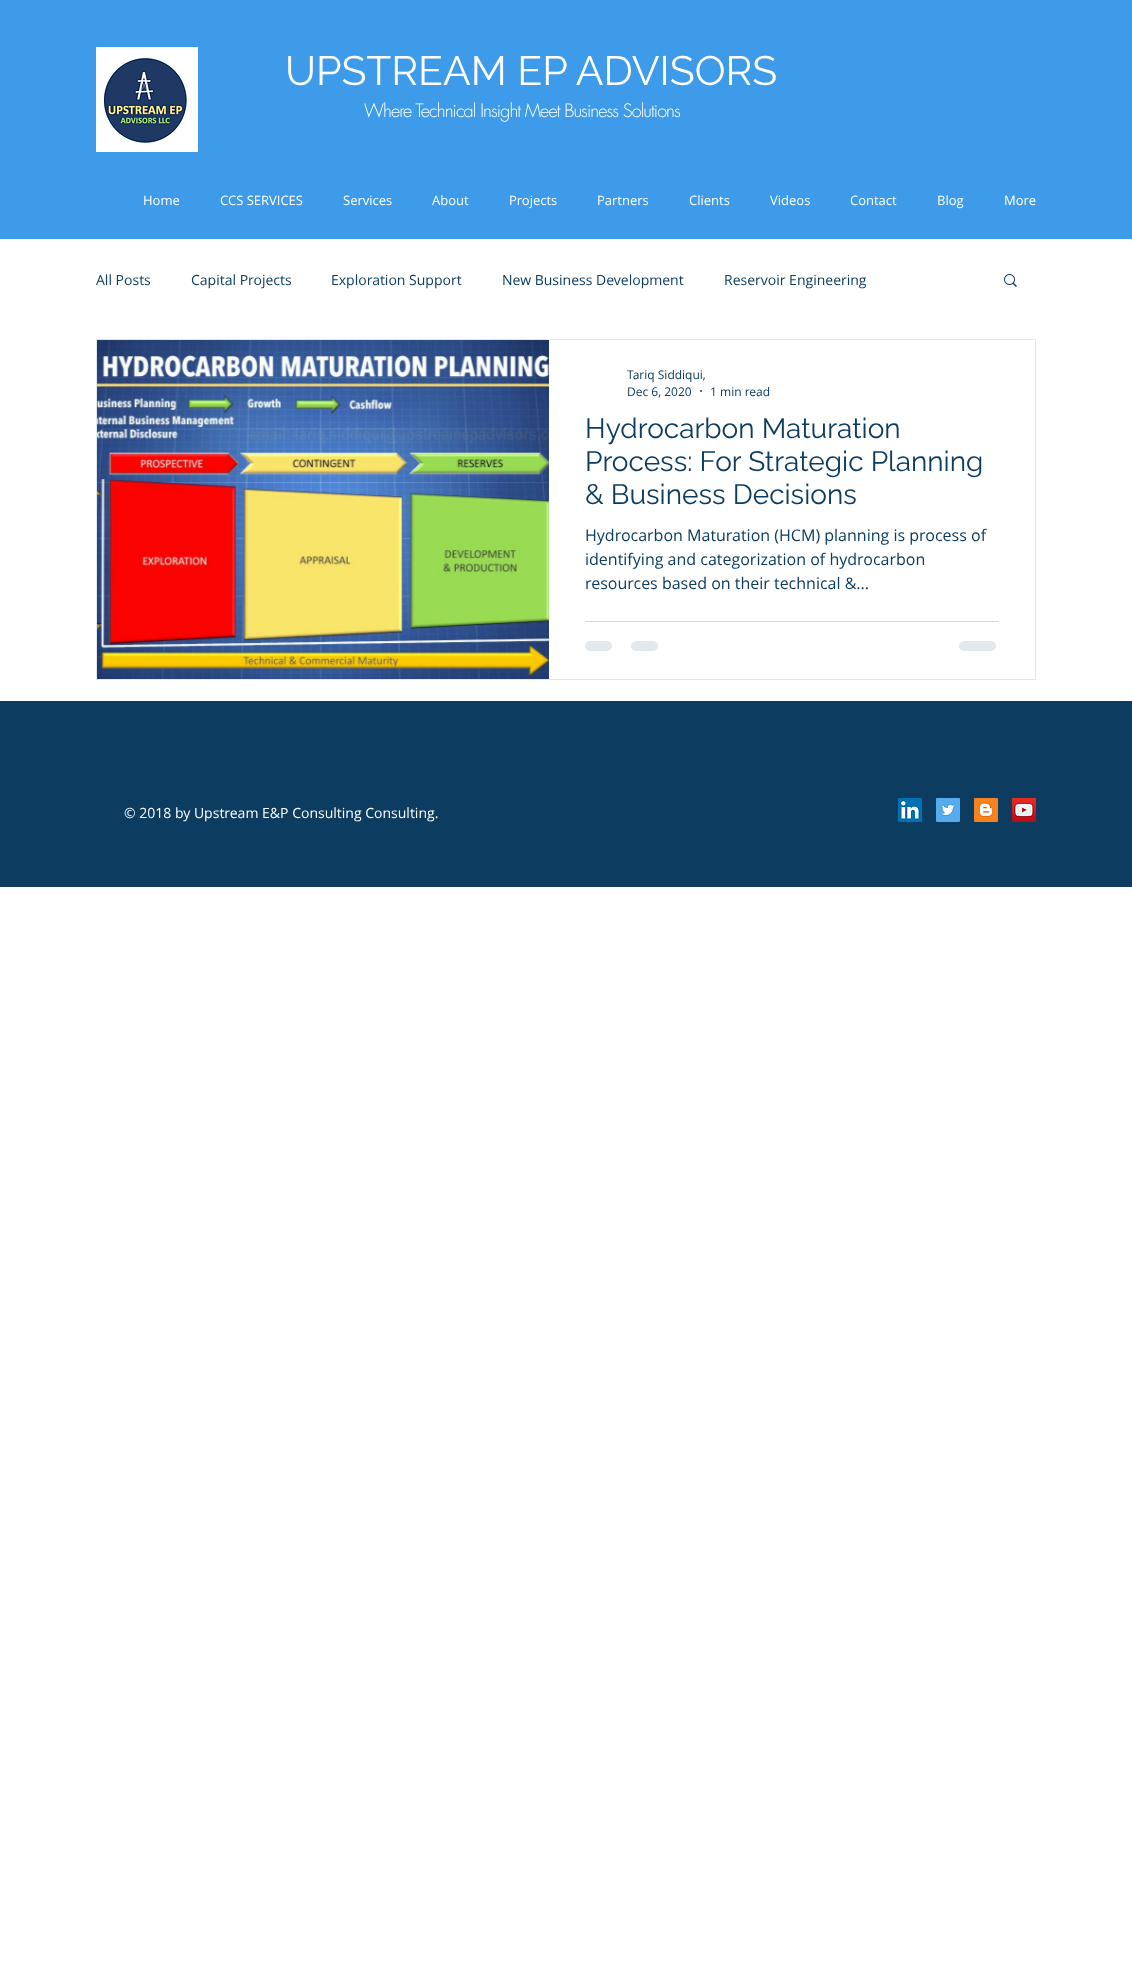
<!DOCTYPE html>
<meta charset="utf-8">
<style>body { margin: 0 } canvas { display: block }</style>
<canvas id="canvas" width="1132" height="1966"></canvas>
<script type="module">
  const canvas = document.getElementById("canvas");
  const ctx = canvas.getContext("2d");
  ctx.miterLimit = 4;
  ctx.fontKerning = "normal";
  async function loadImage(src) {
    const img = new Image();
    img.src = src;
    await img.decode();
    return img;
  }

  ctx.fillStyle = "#ffffff";
  ctx.fillRect(0, 0, 1132, 1966);
  ctx.fillStyle = "#3d9be9";
  ctx.fillRect(0, 0, 1132, 239);
  ctx.drawImage(await loadImage("img1.png"), 96, 47, 102, 105);
  ctx.font = "41px Raleway";
  ctx.fillStyle = "#ffffff";
  ctx.fillText("UPSTREAM EP ADVISORS", 285, 85);
  ctx.letterSpacing = "-0.9px";
  ctx.font = "300 18px futura";
  ctx.fillText("Where Technical Insight Meet Business Solutions", 364, 117);
  ctx.letterSpacing = "0px";
  ctx.font = "13px Open Sans";
  ctx.fillText("Home", 143, 205);
  ctx.fillText("CCS SERVICES", 220, 205);
  ctx.fillText("Services", 343, 205);
  ctx.fillText("About", 432, 205);
  ctx.fillText("Projects", 509, 205);
  ctx.fillText("Partners", 597, 205);
  ctx.fillText("Clients", 689, 205);
  ctx.fillText("Videos", 770, 205);
  ctx.fillText("Contact", 850, 205);
  ctx.fillText("Blog", 937, 205);
  ctx.fillText("More", 1004, 205);
  ctx.font = "14px Open Sans";
  ctx.fillStyle = "#0c3c60";
  ctx.fillText("All Posts", 96, 285);
  ctx.fillText("Capital Projects", 191, 285);
  ctx.fillText("Exploration Support", 331, 285);
  ctx.fillText("New Business Development", 502, 285);
  ctx.fillText("Reservoir Engineering", 724, 285);
  ctx.drawImage(await loadImage("img2.png"), 1004, 274, 13, 13);
  ctx.strokeStyle = "#dde8f0";
  ctx.strokeRect(96.5, 339.5, 939, 340);
  ctx.drawImage(await loadImage("img3.png"), 97, 340, 452, 339);
  ctx.font = "12px Open Sans";
  ctx.fillText("Tariq Siddiqui,", 627, 379);
  ctx.fillText("Dec 6, 2020", 627, 396);
  ctx.beginPath();
  ctx.arc(701, 391, 1, 0, Math.PI * 2);
  ctx.fill();
  ctx.fillText("1 min read", 710, 396);
  ctx.font = "28px Raleway";
  ctx.fillText("Hydrocarbon Maturation", 585, 438);
  ctx.fillText("Process: For Strategic Planning", 585, 471);
  ctx.fillText("& Business Decisions", 585, 504);
  ctx.font = "16px Open Sans";
  ctx.fillText("Hydrocarbon Maturation (HCM) planning is process of", 585, 541);
  ctx.fillText("identifying and categorization of hydrocarbon", 585, 565);
  ctx.fillText("resources based on their technical &...", 585, 589);
  ctx.fillStyle = "#ced8df";
  ctx.fillRect(585, 621, 414, 1);
  ctx.fillStyle = "#e2e8ec";
  ctx.beginPath();
  ctx.roundRect(585, 641, 27, 10, 5);
  ctx.fill();
  ctx.beginPath();
  ctx.roundRect(631, 641, 27, 10, 5);
  ctx.fill();
  ctx.beginPath();
  ctx.roundRect(959, 641, 37, 10, 5);
  ctx.fill();
  ctx.fillStyle = "#0c3c60";
  ctx.fillRect(0, 701, 1132, 186);
  ctx.font = "14px Open Sans";
  ctx.fillStyle = "#ffffff";
  ctx.fillText("© 2018 by Upstream E&P Consulting Consulting.", 124, 818);
  ctx.drawImage(await loadImage("img4.png"), 898, 798, 24, 24);
  ctx.drawImage(await loadImage("img5.png"), 936, 798, 24, 24);
  ctx.drawImage(await loadImage("img6.png"), 974, 798, 24, 24);
  ctx.drawImage(await loadImage("img7.png"), 1012, 798, 24, 24);
</script>
